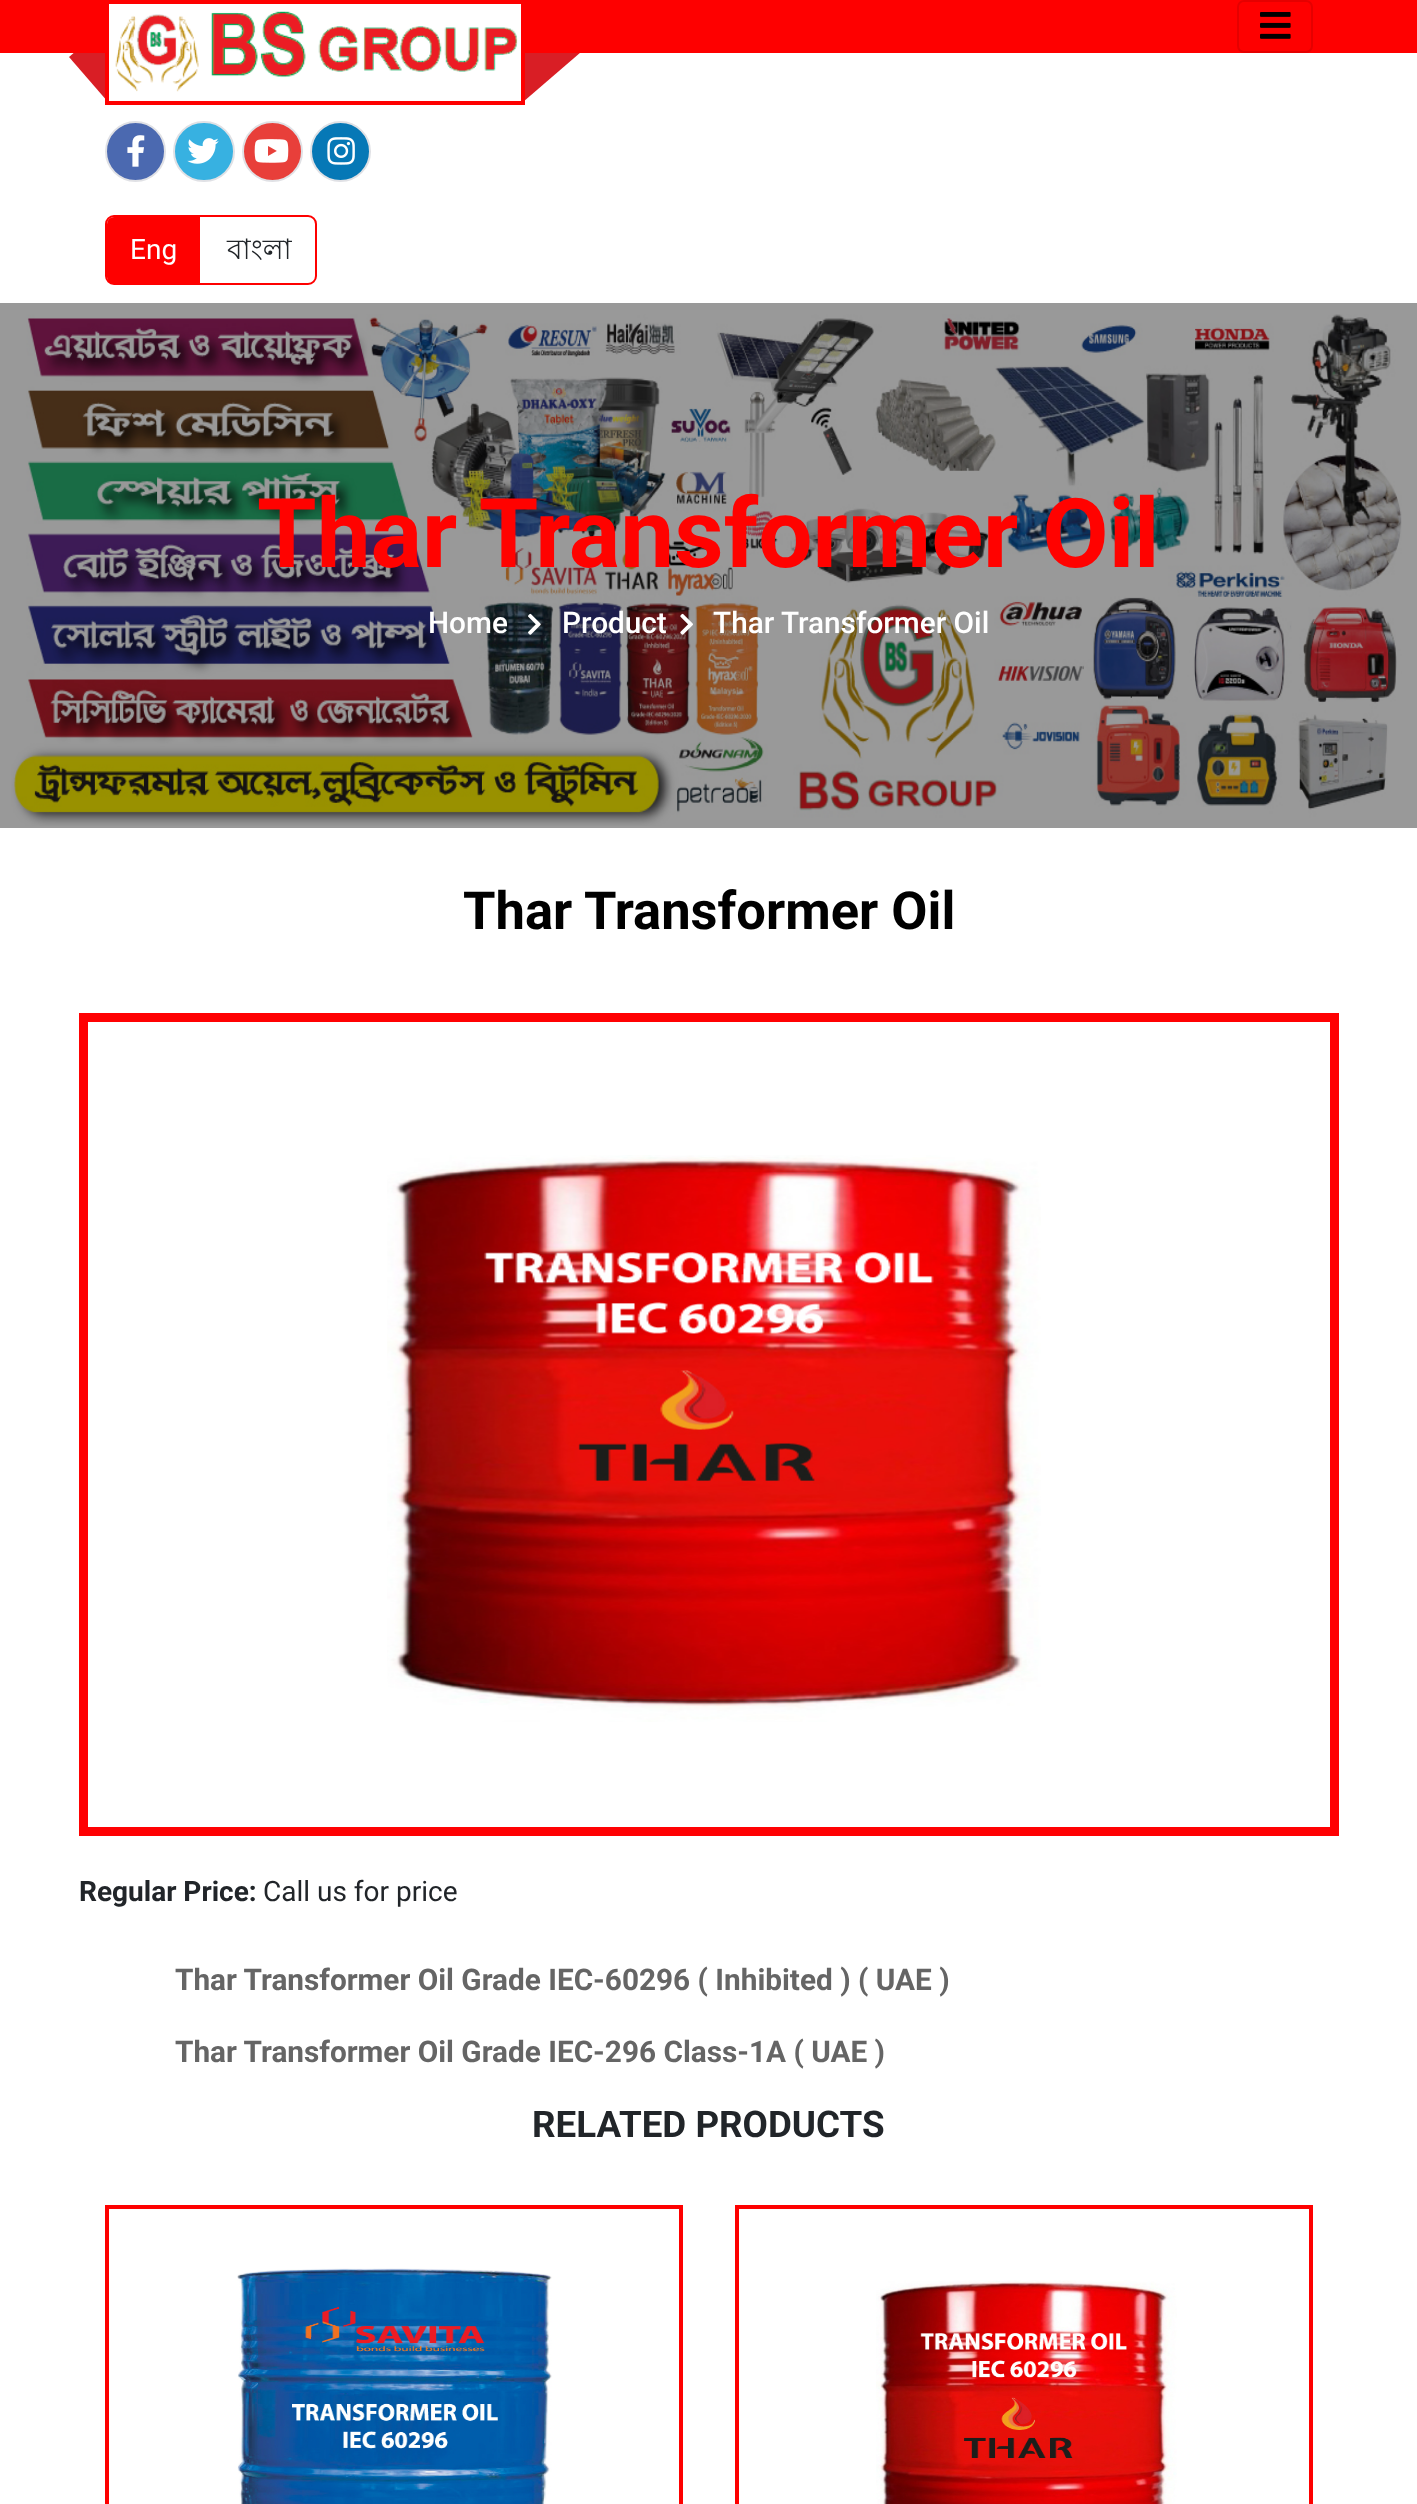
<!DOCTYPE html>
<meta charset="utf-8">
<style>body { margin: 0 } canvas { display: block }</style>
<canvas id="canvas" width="1417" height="2504"></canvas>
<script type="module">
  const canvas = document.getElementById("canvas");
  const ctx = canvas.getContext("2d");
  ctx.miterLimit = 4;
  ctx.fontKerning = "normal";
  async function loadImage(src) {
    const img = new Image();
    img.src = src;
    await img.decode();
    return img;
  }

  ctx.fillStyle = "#ffffff";
  ctx.fillRect(0, 0, 1417, 2504);
  ctx.fillStyle = "#999999";
  ctx.fillRect(0, 303, 1417, 525);
  ctx.fillStyle = "#d91e25";
  ctx.beginPath();
  ctx.moveTo(134, 1);
  ctx.lineTo(173, 46);
  ctx.lineTo(108, 102);
  ctx.lineTo(69, 57);
  ctx.closePath();
  ctx.fill();
  ctx.beginPath();
  ctx.moveTo(549, 1);
  ctx.lineTo(588, 46);
  ctx.lineTo(523, 102);
  ctx.lineTo(484, 57);
  ctx.closePath();
  ctx.fill();
  ctx.fillStyle = "#fe0000";
  ctx.fillRect(0, 0, 1417, 53);
  ctx.fillStyle = "#ffffff";
  ctx.beginPath();
  ctx.rect(107, 2, 416, 101);
  ctx.fill();
  ctx.strokeStyle = "#fe0000";
  ctx.lineWidth = 4;
  ctx.stroke();
  ctx.drawImage(await loadImage("img1.png"), 115, 11, 403, 81);
  ctx.beginPath();
  ctx.roundRect(1238, 1, 74, 51, 6);
  ctx.strokeStyle = "#e50000";
  ctx.lineWidth = 2;
  ctx.stroke();
  ctx.drawImage(await loadImage("img2.png"), 1260, 12, 31, 27);
  ctx.fillStyle = "#4b69b0";
  ctx.beginPath();
  ctx.arc(135.5, 151.5, 29.5, 0, Math.PI * 2);
  ctx.fill();
  ctx.strokeStyle = "#e0e1e5";
  ctx.stroke();
  ctx.drawImage(await loadImage("img3.png"), 127, 135, 18, 32);
  ctx.fillStyle = "#37b1e1";
  ctx.beginPath();
  ctx.roundRect(174, 122, 60, 59, 29.5);
  ctx.fill();
  ctx.stroke();
  ctx.drawImage(await loadImage("img4.png"), 187, 138, 32, 26);
  ctx.fillStyle = "#e83f3a";
  ctx.beginPath();
  ctx.arc(272.5, 151.5, 29.5, 0, Math.PI * 2);
  ctx.fill();
  ctx.stroke();
  ctx.drawImage(await loadImage("img5.png"), 254, 139, 35, 24);
  ctx.fillStyle = "#0678b6";
  ctx.beginPath();
  ctx.arc(340.5, 151.5, 29.5, 0, Math.PI * 2);
  ctx.fill();
  ctx.stroke();
  ctx.drawImage(await loadImage("img6.png"), 327, 137, 28, 28);
  ctx.beginPath();
  ctx.roundRect(106, 216, 210, 68, 8);
  ctx.strokeStyle = "#fe0000";
  ctx.stroke();
  ctx.fillStyle = "#fe0000";
  ctx.beginPath();
  ctx.roundRect(107, 217, 93, 67, [7, 0, 0, 7]);
  ctx.fill();
  ctx.font = "28px Roboto";
  ctx.fillStyle = "#ffffff";
  ctx.fillText("Eng", 130, 259);
  ctx.font = "28px Lohit Bengali";
  ctx.fillStyle = "#212529";
  ctx.fillText("বাংলা", 227, 259);
  ctx.drawImage(await loadImage("img7.png"), 11, 314, 1391, 512);
  ctx.font = "bold 96.25px Roboto";
  ctx.fillStyle = "#ff0200";
  ctx.fillText("Thar Transformer Oil", 257, 567);
  ctx.font = "500 29.75px Roboto";
  ctx.fillStyle = "#ffffff";
  ctx.fillText("Home", 428, 633);
  ctx.drawImage(await loadImage("img8.png"), 528, 613, 13, 22);
  ctx.fillText("Product", 562, 633);
  ctx.drawImage(await loadImage("img9.png"), 680, 613, 13, 22);
  ctx.fillText("Thar Transformer Oil", 713, 633);
  ctx.font = "bold 52.5px Roboto";
  ctx.fillStyle = "#000000";
  ctx.fillText("Thar Transformer Oil", 463, 929);
  ctx.strokeStyle = "#ff0103";
  ctx.lineWidth = 9;
  ctx.strokeRect(83.5, 1017.5, 1251, 814);
  ctx.drawImage(await loadImage("img10.png"), 387, 1155, 654, 567);
  ctx.font = "bold 28px Roboto";
  ctx.fillStyle = "#212529";
  ctx.fillText("Regular Price:", 79, 1901);
  ctx.font = "28px Roboto";
  ctx.fillText("Call us for price", 263, 1901);
  ctx.font = "bold 29.75px Roboto";
  ctx.fillStyle = "#656565";
  ctx.fillText("Thar Transformer Oil Grade IEC-60296 ( Inhibited ) ( UAE )", 175, 1990);
  ctx.fillText("Thar Transformer Oil Grade IEC-296 Class-1A ( UAE )", 175, 2062);
  ctx.font = "bold 36.75px Roboto";
  ctx.fillStyle = "#212529";
  ctx.fillText("RELATED PRODUCTS", 532, 2137);
  ctx.strokeStyle = "#fe0000";
  ctx.lineWidth = 4;
  ctx.strokeRect(107, 2207, 574, 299);
  ctx.drawImage(await loadImage("img11.png"), 237, 2268, 315, 236);
  ctx.strokeRect(737, 2207, 574, 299);
  ctx.drawImage(await loadImage("img12.png"), 876, 2280, 301, 224);
</script>
